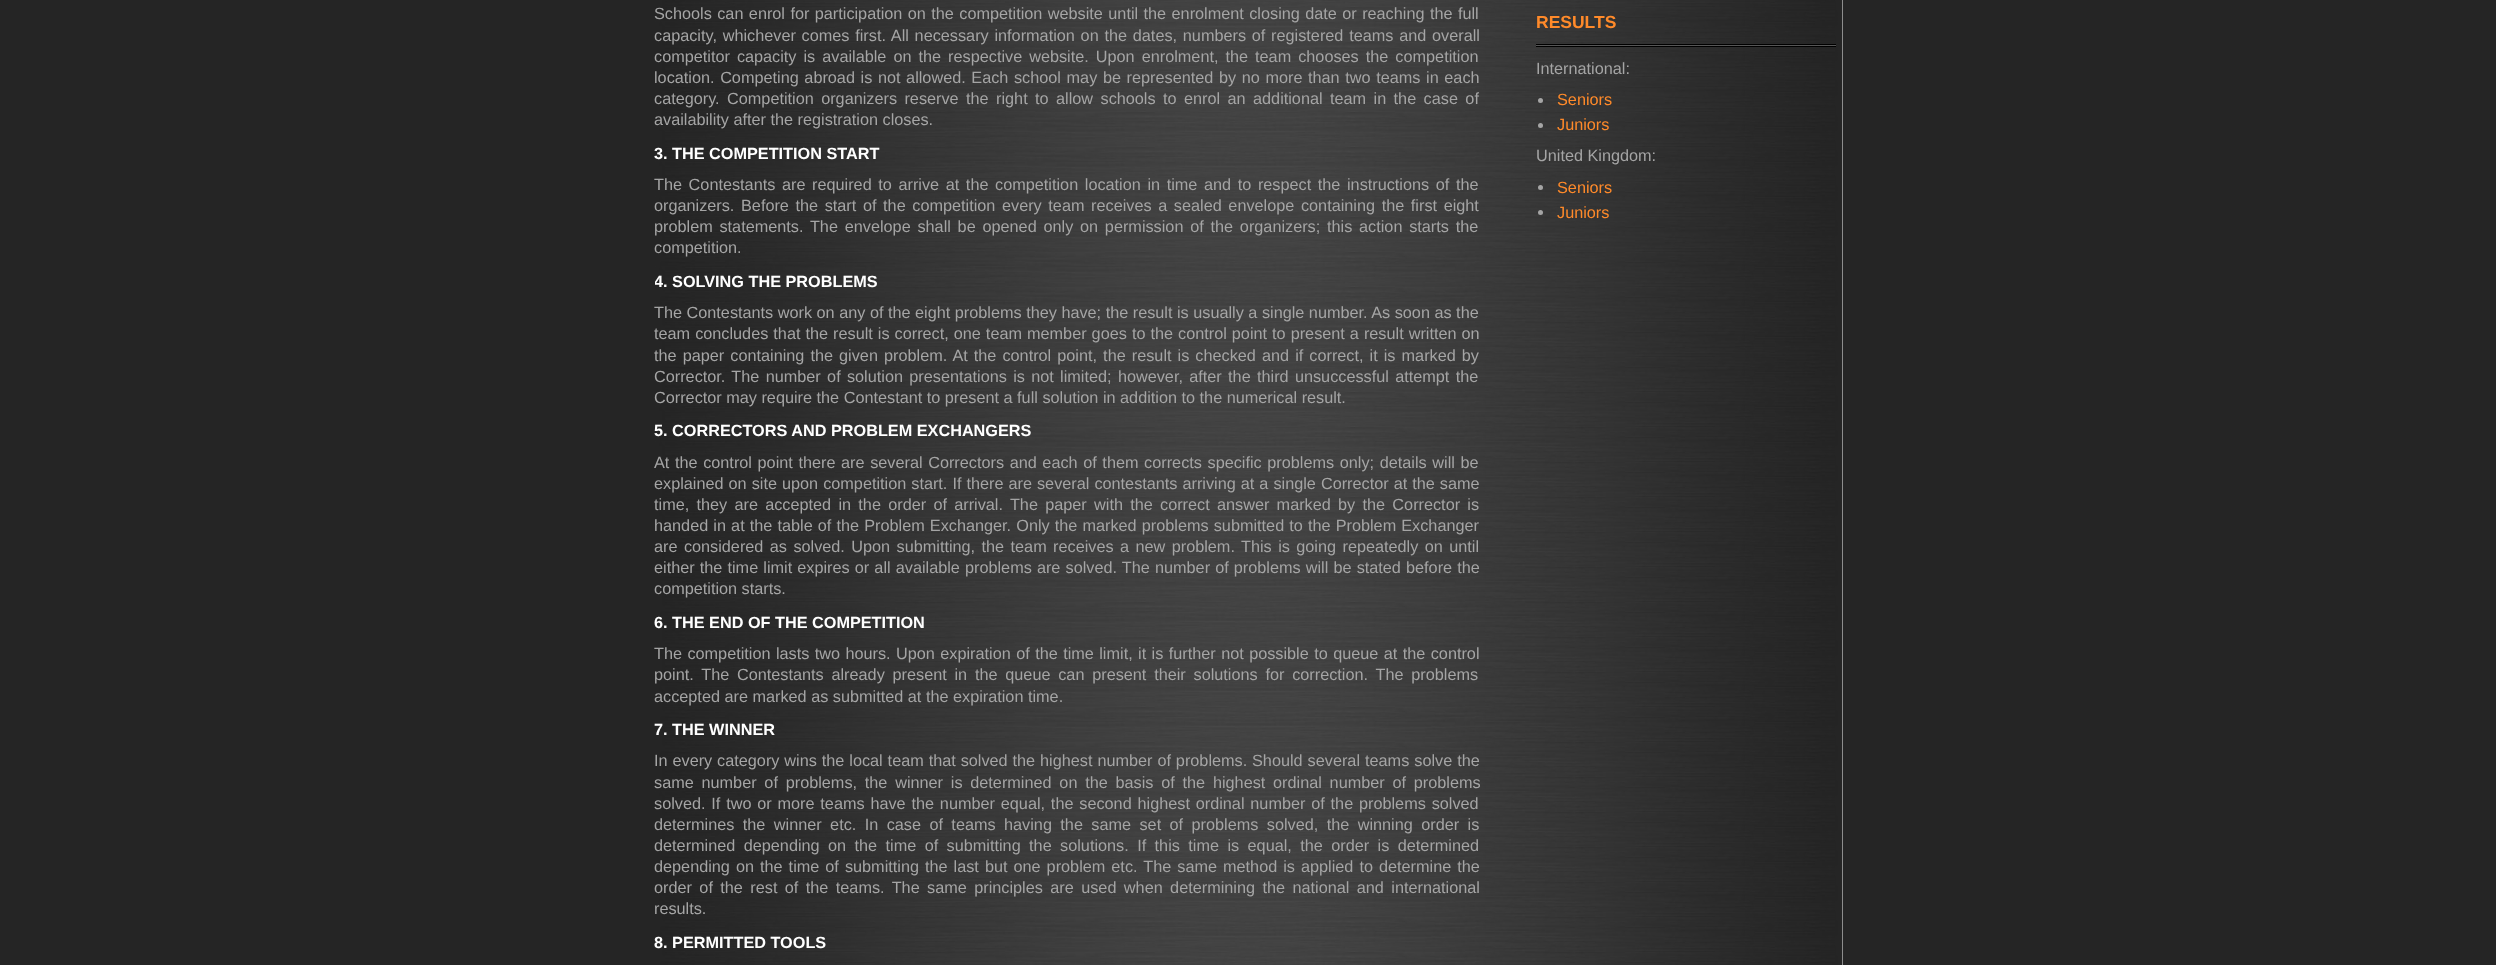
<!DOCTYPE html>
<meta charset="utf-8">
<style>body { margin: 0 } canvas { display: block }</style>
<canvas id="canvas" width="2496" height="965"></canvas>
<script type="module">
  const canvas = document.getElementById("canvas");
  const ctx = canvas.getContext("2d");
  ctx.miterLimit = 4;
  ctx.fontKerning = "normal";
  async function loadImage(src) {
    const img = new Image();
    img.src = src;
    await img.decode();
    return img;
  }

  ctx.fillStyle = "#252525";
  ctx.fillRect(0, 0, 2496, 965);
  ctx.fillStyle = "#f4f4f4";
  ctx.fillRect(1842, 0, 1, 965);
  ctx.drawImage(await loadImage("img1.png"), 655, 0, 1188, 965);
  ctx.wordSpacing = "0.9px";
  ctx.font = "16.25px Liberation Sans";
  ctx.fillStyle = "#a5a5a5";
  ctx.fillText("Schools can enrol for participation on the competition website until the enrolment closing date or reaching the full", 654, 19);
  ctx.wordSpacing = "1.25px";
  ctx.fillText("capacity, whichever comes first. All necessary information on the dates, numbers of registered teams and overall", 654, 41);
  ctx.wordSpacing = "2.5px";
  ctx.fillText("competitor capacity is available on the respective website. Upon enrolment, the team chooses the competition", 654, 62);
  ctx.wordSpacing = "1.1px";
  ctx.fillText("location. Competing abroad is not allowed. Each school may be represented by no more than two teams in each", 654, 83);
  ctx.wordSpacing = "2.9px";
  ctx.fillText("category. Competition organizers reserve the right to allow schools to enrol an additional team in the case of", 654, 104);
  ctx.wordSpacing = "0px";
  ctx.fillText("availability after the registration closes.", 654, 125);
  ctx.font = "bold 16.25px Liberation Sans";
  ctx.fillStyle = "#ffffff";
  ctx.fillText("3. THE COMPETITION START", 654, 159);
  ctx.wordSpacing = "2.1px";
  ctx.font = "16.25px Liberation Sans";
  ctx.fillStyle = "#a5a5a5";
  ctx.fillText("The Contestants are required to arrive at the competition location in time and to respect the instructions of the", 654, 190);
  ctx.fillText("organizers. Before the start of the competition every team receives a sealed envelope containing the first eight", 654, 211);
  ctx.wordSpacing = "2.25px";
  ctx.fillText("problem statements. The envelope shall be opened only on permission of the organizers; this action starts the", 654, 232);
  ctx.wordSpacing = "0px";
  ctx.fillText("competition.", 654, 253);
  ctx.save();
  ctx.beginPath();
  ctx.rect(655, 0, 1188, 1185);
  ctx.clip();
  ctx.font = "bold 16.25px Liberation Sans";
  ctx.fillStyle = "#ffffff";
  ctx.fillText("4. SOLVING THE PROBLEMS", 654, 287);
  ctx.restore();
  ctx.fillText("The Contestants work on any of the eight problems they have; the result is usually a single number. As soon as the", 654, 318);
  ctx.wordSpacing = "0.5px";
  ctx.fillText("team concludes that the result is correct, one team member goes to the control point to present a result written on", 654, 339);
  ctx.wordSpacing = "1.55px";
  ctx.fillText("the paper containing the given problem. At the control point, the result is checked and if correct, it is marked by", 654, 361);
  ctx.wordSpacing = "1.8px";
  ctx.fillText("Corrector. The number of solution presentations is not limited; however, after the third unsuccessful attempt the", 654, 382);
  ctx.wordSpacing = "0px";
  ctx.fillText("Corrector may require the Contestant to present a full solution in addition to the numerical result.", 654, 403);
  ctx.font = "bold 16.25px Liberation Sans";
  ctx.fillStyle = "#ffffff";
  ctx.fillText("5. CORRECTORS AND PROBLEM EXCHANGERS", 654, 436);
  ctx.wordSpacing = "1.1px";
  ctx.font = "16.25px Liberation Sans";
  ctx.fillStyle = "#a5a5a5";
  ctx.fillText("At the control point there are several Correctors and each of them corrects specific problems only; details will be", 654, 468);
  ctx.wordSpacing = "0.5px";
  ctx.fillText("explained on site upon competition start. If there are several contestants arriving at a single Corrector at the same", 654, 489);
  ctx.wordSpacing = "2.75px";
  ctx.fillText("time, they are accepted in the order of arrival. The paper with the correct answer marked by the Corrector is", 654, 510);
  ctx.wordSpacing = "0.6px";
  ctx.fillText("handed in at the table of the Problem Exchanger. Only the marked problems submitted to the Problem Exchanger", 654, 531);
  ctx.wordSpacing = "1.9px";
  ctx.fillText("are considered as solved. Upon submitting, the team receives a new problem. This is going repeatedly on until", 654, 552);
  ctx.wordSpacing = "0.6px";
  ctx.fillText("either the time limit expires or all available problems are solved. The number of problems will be stated before the", 654, 573);
  ctx.wordSpacing = "0px";
  ctx.fillText("competition starts.", 654, 594);
  ctx.font = "bold 16.25px Liberation Sans";
  ctx.fillStyle = "#ffffff";
  ctx.fillText("6. THE END OF THE COMPETITION", 654, 628);
  ctx.wordSpacing = "0.9px";
  ctx.font = "16.25px Liberation Sans";
  ctx.fillStyle = "#a5a5a5";
  ctx.fillText("The competition lasts two hours. Upon expiration of the time limit, it is further not possible to queue at the control", 654, 659);
  ctx.wordSpacing = "3.25px";
  ctx.fillText("point. The Contestants already present in the queue can present their solutions for correction. The problems", 654, 680);
  ctx.wordSpacing = "0px";
  ctx.fillText("accepted are marked as submitted at the expiration time.", 654, 702);
  ctx.font = "bold 16.25px Liberation Sans";
  ctx.fillStyle = "#ffffff";
  ctx.fillText("7. THE WINNER", 654, 735);
  ctx.wordSpacing = "0.4px";
  ctx.font = "16.25px Liberation Sans";
  ctx.fillStyle = "#a5a5a5";
  ctx.fillText("In every category wins the local team that solved the highest number of problems.", 654, 766);
  ctx.wordSpacing = "0.5px";
  ctx.fillText("Should several teams solve the", 1252, 766);
  ctx.wordSpacing = "3.25px";
  ctx.fillText("same number of problems, the winner is determined on the basis of the highest ordinal number of problems", 654, 788);
  ctx.wordSpacing = "1.3px";
  ctx.fillText("solved. If two or more teams have the number equal, the second highest ordinal number of the problems solved", 654, 809);
  ctx.wordSpacing = "3.9px";
  ctx.fillText("determines the winner etc. In case of teams having the same set of problems solved, the winning order is", 654, 830);
  ctx.fillText("determined depending on the time of submitting the solutions. If this time is equal, the order is determined", 654, 851);
  ctx.wordSpacing = "1.5px";
  ctx.fillText("depending on the time of submitting the last but one problem etc. The same method is applied to determine the", 654, 872);
  ctx.wordSpacing = "2.9px";
  ctx.fillText("order of the rest of the teams. The same principles are used when determining the national and international", 654, 893);
  ctx.wordSpacing = "0px";
  ctx.fillText("results.", 654, 914);
  ctx.font = "bold 16.25px Liberation Sans";
  ctx.fillStyle = "#ffffff";
  ctx.fillText("8. PERMITTED TOOLS", 654, 948);
  ctx.font = "bold 17.5px Liberation Sans";
  ctx.fillStyle = "#ff8a2a";
  ctx.fillText("RESULTS", 1536, 28);
  ctx.fillStyle = "#000000";
  ctx.fillRect(1536, 44, 300, 3);
  ctx.fillStyle = "#565656";
  ctx.fillRect(1536, 45, 300, 1);
  ctx.font = "16.25px Liberation Sans";
  ctx.fillStyle = "#a5a5a5";
  ctx.fillText("International:", 1536, 74);
  ctx.beginPath();
  ctx.arc(1540.5, 100.5, 2.5, 0, Math.PI * 2);
  ctx.fill();
  ctx.fillStyle = "#ff8a2a";
  ctx.fillText("Seniors", 1557, 105);
  ctx.fillStyle = "#a5a5a5";
  ctx.beginPath();
  ctx.arc(1540.5, 125.5, 2.5, 0, Math.PI * 2);
  ctx.fill();
  ctx.fillStyle = "#ff8a2a";
  ctx.fillText("Juniors", 1557, 130);
  ctx.fillStyle = "#a5a5a5";
  ctx.fillText("United Kingdom:", 1536, 161);
  ctx.beginPath();
  ctx.arc(1540.5, 187.5, 2.5, 0, Math.PI * 2);
  ctx.fill();
  ctx.fillStyle = "#ff8a2a";
  ctx.fillText("Seniors", 1557, 193);
  ctx.fillStyle = "#a5a5a5";
  ctx.beginPath();
  ctx.arc(1540.5, 212.5, 2.5, 0, Math.PI * 2);
  ctx.fill();
  ctx.fillStyle = "#ff8a2a";
  ctx.fillText("Juniors", 1557, 218);
</script>
